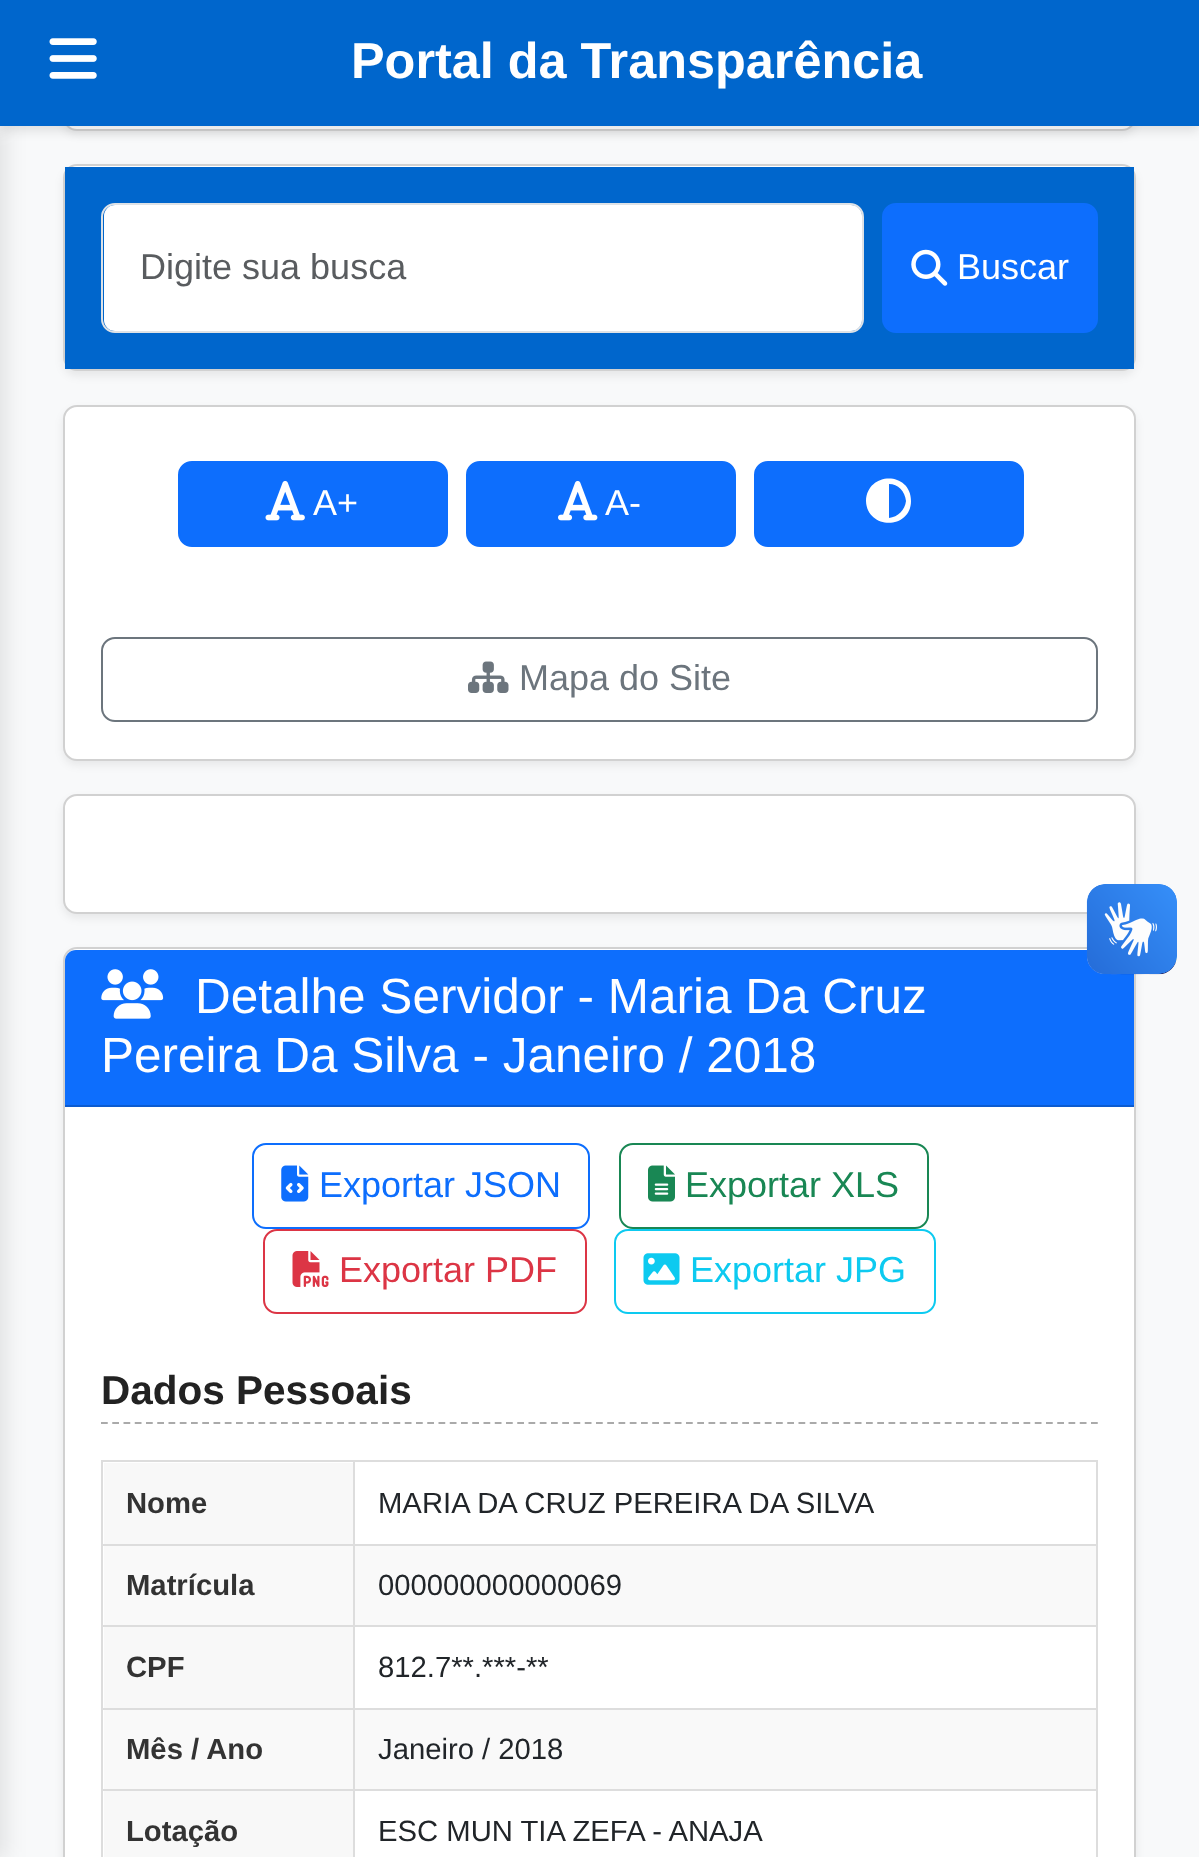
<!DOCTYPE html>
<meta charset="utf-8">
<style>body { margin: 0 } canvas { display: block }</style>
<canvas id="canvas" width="1199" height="1857"></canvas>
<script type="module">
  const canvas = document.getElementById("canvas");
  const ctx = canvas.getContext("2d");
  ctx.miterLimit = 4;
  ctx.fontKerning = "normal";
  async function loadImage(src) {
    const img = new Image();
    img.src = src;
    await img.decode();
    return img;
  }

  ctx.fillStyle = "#f8f9fa";
  ctx.fillRect(0, 0, 1199, 1857);
  ctx.fillStyle = "rgba(0, 0, 0, 0.07)";
  ctx.filter = "blur(4.5px)";
  ctx.beginPath();
  ctx.roundRect(63, -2, 1073, 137, 14);
  ctx.fill();
  ctx.filter = "none";
  ctx.fillStyle = "#ffffff";
  ctx.beginPath();
  ctx.roundRect(63, -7, 1073, 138, 14);
  ctx.fill();
  ctx.beginPath();
  ctx.roundRect(64, -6, 1071, 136, 13);
  ctx.strokeStyle = "rgba(0, 0, 0, 0.18)";
  ctx.lineWidth = 2;
  ctx.stroke();
  ctx.fillStyle = "rgba(0, 0, 0, 0.1)";
  ctx.filter = "blur(5.5px)";
  ctx.beginPath();
  ctx.rect(0, 5, 1199, 126);
  ctx.fill();
  ctx.filter = "none";
  ctx.filter = "blur(11px)";
  ctx.beginPath();
  ctx.rect(-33, 126, 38, 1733);
  ctx.fill();
  ctx.filter = "none";
  ctx.fillStyle = "#0066cc";
  ctx.fillRect(0, 0, 1199, 126);
  ctx.drawImage(await loadImage("img1.png"), 49, 38, 48, 41);
  ctx.font = "bold 50.4px Liberation Sans";
  ctx.fillStyle = "#ffffff";
  ctx.fillText("Portal da Transparência", 351, 78);
  ctx.fillStyle = "rgba(0, 0, 0, 0.07)";
  ctx.filter = "blur(4.5px)";
  ctx.beginPath();
  ctx.roundRect(63, 169, 1073, 207, 14);
  ctx.fill();
  ctx.filter = "none";
  ctx.fillStyle = "#ffffff";
  ctx.beginPath();
  ctx.roundRect(63, 164, 1073, 207, 14);
  ctx.fill();
  ctx.beginPath();
  ctx.roundRect(64, 165, 1071, 205, 13);
  ctx.stroke();
  ctx.fillStyle = "#0066cc";
  ctx.fillRect(65, 167, 1069, 202);
  ctx.fillStyle = "#ffffff";
  ctx.beginPath();
  ctx.roundRect(104, 205, 758, 126, 11);
  ctx.fill();
  ctx.beginPath();
  ctx.roundRect(102, 204, 761, 128, 13);
  ctx.strokeStyle = "#dee2e6";
  ctx.stroke();
  ctx.font = "36px Liberation Sans";
  ctx.fillStyle = "#595c5f";
  ctx.fillText("Digite sua busca", 140, 279);
  ctx.fillStyle = "#0d6efd";
  ctx.beginPath();
  ctx.roundRect(883, 204, 214, 128, 13);
  ctx.fill();
  ctx.strokeStyle = "#0d6efd";
  ctx.stroke();
  ctx.drawImage(await loadImage("img2.png"), 911, 249, 37, 37);
  ctx.fillStyle = "#ffffff";
  ctx.fillText("Buscar", 957, 279);
  ctx.fillStyle = "rgba(0, 0, 0, 0.07)";
  ctx.filter = "blur(4.5px)";
  ctx.beginPath();
  ctx.roundRect(63, 410, 1073, 355, 14);
  ctx.fill();
  ctx.filter = "none";
  ctx.fillStyle = "#ffffff";
  ctx.beginPath();
  ctx.roundRect(63, 405, 1073, 356, 14);
  ctx.fill();
  ctx.beginPath();
  ctx.roundRect(64, 406, 1071, 354, 13);
  ctx.strokeStyle = "rgba(0, 0, 0, 0.18)";
  ctx.stroke();
  ctx.fillStyle = "#0d6efd";
  ctx.beginPath();
  ctx.roundRect(179, 462, 268, 84, 13);
  ctx.fill();
  ctx.strokeStyle = "#0d6efd";
  ctx.stroke();
  ctx.drawImage(await loadImage("img3.png"), 265, 480, 40, 41);
  ctx.fillStyle = "#ffffff";
  ctx.fillText("A+", 313, 515);
  ctx.fillStyle = "#0d6efd";
  ctx.beginPath();
  ctx.roundRect(467, 462, 268, 84, 13);
  ctx.fill();
  ctx.stroke();
  ctx.drawImage(await loadImage("img4.png"), 558, 480, 40, 41);
  ctx.fillStyle = "#ffffff";
  ctx.fillText("A-", 605, 515);
  ctx.fillStyle = "#0d6efd";
  ctx.beginPath();
  ctx.roundRect(755, 462, 268, 84, 13);
  ctx.fill();
  ctx.stroke();
  ctx.fillStyle = "#ffffff";
  ctx.beginPath();
  ctx.moveTo(906, 501);
  ctx.bezierCurveTo(905, 491, 898, 484, 889, 484);
  ctx.lineTo(889, 518);
  ctx.bezierCurveTo(898, 517, 905, 510, 906, 501);
  ctx.closePath();
  ctx.moveTo(866, 501);
  ctx.bezierCurveTo(867, 471, 911, 471, 911, 501);
  ctx.bezierCurveTo(911, 530, 867, 530, 866, 501);
  ctx.closePath();
  ctx.fill();
  ctx.beginPath();
  ctx.roundRect(102, 638, 995, 83, 13);
  ctx.strokeStyle = "#6c757d";
  ctx.stroke();
  ctx.drawImage(await loadImage("img5.png"), 468, 661, 41, 32);
  ctx.fillStyle = "#6c757d";
  ctx.fillText("Mapa do Site", 519, 690);
  ctx.fillStyle = "rgba(0, 0, 0, 0.07)";
  ctx.filter = "blur(4.5px)";
  ctx.beginPath();
  ctx.roundRect(63, 799, 1073, 119, 14);
  ctx.fill();
  ctx.filter = "none";
  ctx.fillStyle = "#ffffff";
  ctx.beginPath();
  ctx.roundRect(63, 794, 1073, 120, 14);
  ctx.fill();
  ctx.beginPath();
  ctx.roundRect(64, 795, 1071, 118, 13);
  ctx.strokeStyle = "rgba(0, 0, 0, 0.18)";
  ctx.stroke();
  ctx.fillStyle = "rgba(0, 0, 0, 0.07)";
  ctx.filter = "blur(4.5px)";
  ctx.beginPath();
  ctx.roundRect(63, 952, 1073, 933, 14);
  ctx.fill();
  ctx.filter = "none";
  ctx.fillStyle = "#ffffff";
  ctx.beginPath();
  ctx.roundRect(63, 947, 1073, 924, 14);
  ctx.fill();
  ctx.beginPath();
  ctx.roundRect(64, 948, 1071, 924, 13);
  ctx.stroke();
  ctx.fillStyle = "#0d6efd";
  ctx.beginPath();
  ctx.roundRect(65, 950, 1069, 157, [11, 11, 0, 0]);
  ctx.fill();
  ctx.fillStyle = "#0b5bd0";
  ctx.fillRect(65, 1105, 1069, 2);
  ctx.drawImage(await loadImage("img6.png"), 101, 969, 63, 50);
  ctx.font = "49.5px Liberation Sans";
  ctx.fillStyle = "#ffffff";
  ctx.fillText("Detalhe Servidor - Maria Da Cruz", 195, 1013);
  ctx.fillText("Pereira Da Silva - Janeiro / 2018", 101, 1072);
  ctx.beginPath();
  ctx.roundRect(253, 1144, 336, 84, 13);
  ctx.strokeStyle = "#0d6efd";
  ctx.stroke();
  ctx.drawImage(await loadImage("img7.png"), 281, 1165, 28, 37);
  ctx.font = "36px Liberation Sans";
  ctx.fillStyle = "#0d6efd";
  ctx.fillText("Exportar JSON", 319, 1197);
  ctx.beginPath();
  ctx.roundRect(620, 1144, 308, 84, 13);
  ctx.strokeStyle = "#198754";
  ctx.stroke();
  ctx.drawImage(await loadImage("img8.png"), 648, 1165, 27, 37);
  ctx.fillStyle = "#198754";
  ctx.fillText("Exportar XLS", 685, 1197);
  ctx.beginPath();
  ctx.roundRect(264, 1230, 322, 83, 13);
  ctx.strokeStyle = "#dc3545";
  ctx.stroke();
  ctx.drawImage(await loadImage("img9.png"), 292, 1251, 37, 36);
  ctx.fillStyle = "#dc3545";
  ctx.fillText("Exportar PDF", 339, 1282);
  ctx.beginPath();
  ctx.roundRect(615, 1230, 320, 83, 13);
  ctx.strokeStyle = "#0dcaf0";
  ctx.stroke();
  ctx.drawImage(await loadImage("img10.png"), 643, 1253, 37, 32);
  ctx.fillStyle = "#0dcaf0";
  ctx.fillText("Exportar JPG", 690, 1282);
  ctx.beginPath();
  ctx.moveTo(101, 1423);
  ctx.lineTo(1098, 1423);
  ctx.strokeStyle = "#aaaaaa";
  ctx.lineWidth = 2.2;
  ctx.setLineDash([6.75, 4.5]);
  ctx.stroke();
  ctx.font = "bold 40.5px Liberation Sans";
  ctx.fillStyle = "#222222";
  ctx.fillText("Dados Pessoais", 101, 1404);
  ctx.fillStyle = "#f8f8f8";
  ctx.fillRect(104, 1463, 249, 81);
  ctx.fillStyle = "#dddddd";
  ctx.fillRect(353, 1460, 745, 2);
  ctx.fillRect(353, 1544, 745, 2);
  ctx.fillStyle = "#f9f9f9";
  ctx.fillRect(104, 1546, 992, 79);
  ctx.fillStyle = "#dddddd";
  ctx.fillRect(353, 1625, 745, 2);
  ctx.fillRect(353, 1708, 745, 2);
  ctx.fillStyle = "#f9f9f9";
  ctx.fillRect(104, 1710, 992, 79);
  ctx.fillStyle = "#dddddd";
  ctx.fillRect(353, 1789, 745, 2);
  ctx.fillRect(353, 1789, 2, 68);
  ctx.fillRect(101, 1789, 255, 2);
  ctx.fillRect(353, 1708, 2, 83);
  ctx.fillRect(101, 1708, 255, 2);
  ctx.fillRect(353, 1625, 2, 85);
  ctx.fillRect(101, 1625, 255, 2);
  ctx.fillRect(353, 1544, 2, 83);
  ctx.fillRect(101, 1544, 255, 2);
  ctx.fillRect(353, 1460, 2, 86);
  ctx.fillRect(101, 1460, 255, 2);
  ctx.fillRect(101, 1789, 2, 68);
  ctx.fillRect(101, 1708, 2, 83);
  ctx.fillRect(101, 1625, 2, 85);
  ctx.fillRect(101, 1544, 2, 83);
  ctx.fillRect(101, 1460, 2, 86);
  ctx.font = "bold 29.25px Liberation Sans";
  ctx.fillStyle = "#333333";
  ctx.fillText("Nome", 126, 1513);
  ctx.fillStyle = "#dddddd";
  ctx.fillRect(1096, 1789, 2, 68);
  ctx.fillRect(1096, 1708, 2, 83);
  ctx.fillRect(1096, 1625, 2, 85);
  ctx.fillRect(1096, 1544, 2, 83);
  ctx.fillRect(1096, 1460, 2, 86);
  ctx.font = "29.25px Liberation Sans";
  ctx.fillStyle = "#212529";
  ctx.fillText("MARIA DA CRUZ PEREIRA DA SILVA", 378, 1513);
  ctx.font = "bold 29.25px Liberation Sans";
  ctx.fillStyle = "#333333";
  ctx.fillText("Matrícula", 126, 1595);
  ctx.font = "29.25px Liberation Sans";
  ctx.fillStyle = "#212529";
  ctx.fillText("000000000000069", 378, 1595);
  ctx.fillStyle = "#f8f8f8";
  ctx.fillRect(104, 1627, 249, 81);
  ctx.font = "bold 29.25px Liberation Sans";
  ctx.fillStyle = "#333333";
  ctx.fillText("CPF", 126, 1677);
  ctx.font = "29.25px Liberation Sans";
  ctx.fillStyle = "#212529";
  ctx.fillText("812.7**.***-**", 378, 1677);
  ctx.font = "bold 29.25px Liberation Sans";
  ctx.fillStyle = "#333333";
  ctx.fillText("Mês / Ano", 126, 1759);
  ctx.font = "29.25px Liberation Sans";
  ctx.fillStyle = "#212529";
  ctx.fillText("Janeiro / 2018", 378, 1759);
  ctx.fillStyle = "#f8f8f8";
  ctx.fillRect(104, 1791, 249, 66);
  ctx.font = "bold 29.25px Liberation Sans";
  ctx.fillStyle = "#333333";
  ctx.fillText("Lotação", 126, 1841);
  ctx.font = "29.25px Liberation Sans";
  ctx.fillStyle = "#212529";
  ctx.fillText("ESC MUN TIA ZEFA - ANAJA", 378, 1841);
  ctx.drawImage(await loadImage("img11.png"), 1086, 884, 91, 91);
  ctx.drawImage(await loadImage("img12.png"), 1087, 884, 90, 90);
</script>
